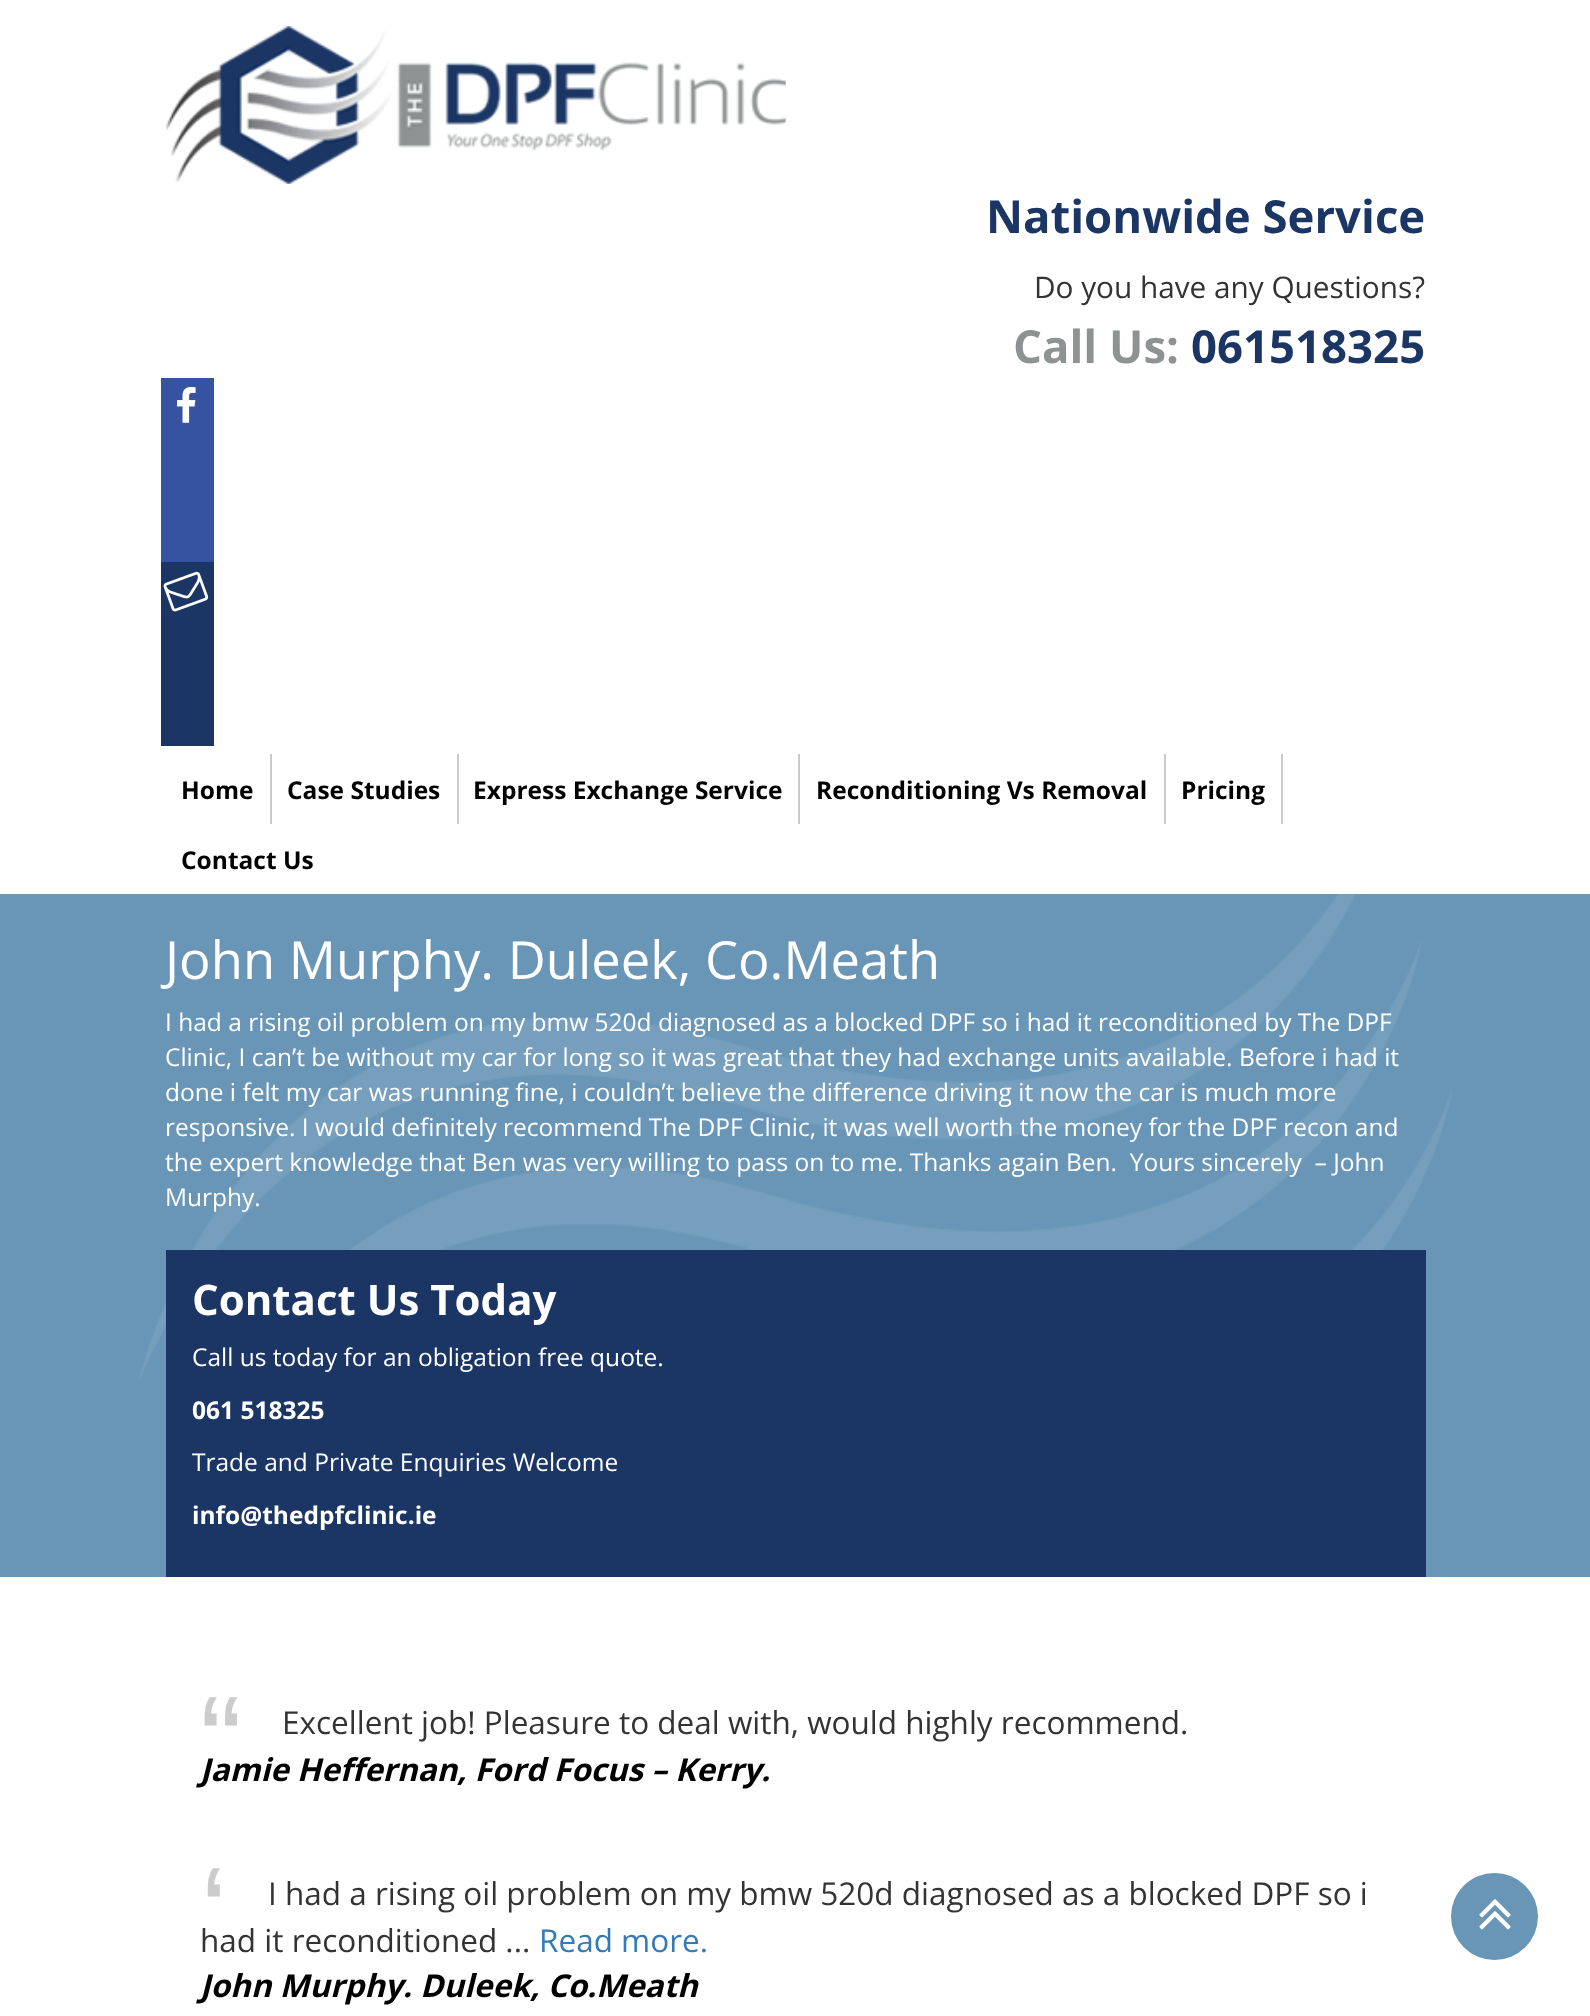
<!DOCTYPE html>
<meta charset="utf-8">
<style>body { margin: 0 } canvas { display: block }</style>
<canvas id="canvas" width="1590" height="2016"></canvas>
<script type="module">
  const canvas = document.getElementById("canvas");
  const ctx = canvas.getContext("2d");
  ctx.miterLimit = 4;
  ctx.fontKerning = "normal";
  async function loadImage(src) {
    const img = new Image();
    img.src = src;
    await img.decode();
    return img;
  }

  ctx.fillStyle = "#ffffff";
  ctx.fillRect(0, 0, 1590, 2016);
  ctx.drawImage(await loadImage("img1.png"), 166, 26, 620, 158);
  ctx.font = "bold 45.5px Open Sans";
  ctx.fillStyle = "#1b3664";
  ctx.fillText("Nationwide Service", 986, 233);
  ctx.font = "29.75px Open Sans";
  ctx.fillStyle = "#333333";
  ctx.fillText("Do you have any Questions?", 1034, 298);
  ctx.font = "bold 45.5px Open Sans";
  ctx.fillStyle = "#8e9293";
  ctx.fillText("Call Us:", 1013, 363);
  ctx.fillStyle = "#1b3664";
  ctx.fillText("061518325", 1191, 363);
  ctx.fillStyle = "#3653a1";
  ctx.fillRect(161, 378, 53, 184);
  ctx.drawImage(await loadImage("img2.png"), 177, 387, 19, 36);
  ctx.fillStyle = "#1b3664";
  ctx.fillRect(161, 562, 53, 184);
  ctx.drawImage(await loadImage("img3.png"), 163, 571, 46, 41);
  ctx.fillStyle = "#cbccce";
  ctx.fillRect(270, 754, 2, 70);
  ctx.font = "bold 24.5px Open Sans";
  ctx.fillStyle = "#000000";
  ctx.fillText("Home", 181, 799);
  ctx.fillStyle = "#cbccce";
  ctx.fillRect(457, 754, 2, 70);
  ctx.fillStyle = "#000000";
  ctx.fillText("Case Studies", 287, 799);
  ctx.fillStyle = "#cbccce";
  ctx.fillRect(798, 754, 2, 70);
  ctx.fillStyle = "#000000";
  ctx.fillText("Express Exchange Service", 473, 799);
  ctx.fillStyle = "#cbccce";
  ctx.fillRect(1164, 754, 2, 70);
  ctx.fillStyle = "#000000";
  ctx.fillText("Reconditioning Vs Removal", 816, 799);
  ctx.fillStyle = "#cbccce";
  ctx.fillRect(1281, 754, 2, 70);
  ctx.fillStyle = "#000000";
  ctx.fillText("Pricing", 1181, 799);
  ctx.fillText("Contact Us", 181, 869);
  ctx.fillStyle = "#6996b7";
  ctx.fillRect(0, 894, 1590, 683);
  ctx.drawImage(await loadImage("img4.png"), 139, 894, 1313, 486);
  ctx.font = "52.5px Open Sans";
  ctx.fillStyle = "#ffffff";
  ctx.fillText("John Murphy. Duleek, Co.Meath", 165, 979);
  ctx.font = "24.5px Open Sans";
  ctx.fillText("I had a rising oil problem on my bmw 520d diagnosed as a blocked DPF so i had it reconditioned by The DPF", 165, 1031);
  ctx.fillText("Clinic, I can’t be without my car for long so it was great that they had exchange units available. Before i had it", 165, 1066);
  ctx.fillText("done i felt my car was running fine, i couldn’t believe the difference driving it now the car is much more", 165, 1101);
  ctx.fillText("responsive. I would definitely recommend The DPF Clinic, it was well worth the money for the DPF recon and", 165, 1136);
  ctx.fillText("the expert knowledge that Ben was very willing to pass on to me. Thanks again Ben.  Yours sincerely  – John", 165, 1171);
  ctx.fillText("Murphy.", 165, 1206);
  ctx.fillStyle = "#1b3664";
  ctx.fillRect(166, 1250, 1260, 327);
  ctx.font = "bold 42px Open Sans";
  ctx.fillStyle = "#ffffff";
  ctx.fillText("Contact Us Today", 192, 1315);
  ctx.font = "24.5px Open Sans";
  ctx.fillText("Call us today for an obligation free quote.", 192, 1366);
  ctx.font = "bold 24.5px Open Sans";
  ctx.fillText("061 518325", 192, 1419);
  ctx.font = "24.5px Open Sans";
  ctx.fillText("Trade and Private Enquiries Welcome", 192, 1471);
  ctx.font = "bold 24.5px Open Sans";
  ctx.fillText("info@thedpfclinic.ie", 192, 1524);
  ctx.font = "126px Liberation Sans";
  ctx.fillStyle = "#cccccc";
  ctx.fillText("“", 200, 1784);
  ctx.font = "31.5px Open Sans";
  ctx.fillStyle = "#333333";
  ctx.fillText("Excellent job! Pleasure to deal with, would highly recommend.", 282, 1734);
  ctx.font = "italic bold 31.5px Open Sans";
  ctx.fillStyle = "#000000";
  ctx.fillText("Jamie Heffernan, Ford Focus – Kerry.", 200, 1781);
  ctx.font = "126px Liberation Sans";
  ctx.fillStyle = "#cccccc";
  ctx.fillText("‘", 200, 1955);
  ctx.font = "31.5px Open Sans";
  ctx.fillStyle = "#333333";
  ctx.fillText("I had a rising oil problem on my bmw 520d diagnosed as a blocked DPF so i", 268, 1905);
  ctx.fillText("had it reconditioned ...", 200, 1952);
  ctx.fillStyle = "#337ab7";
  ctx.fillText("Read more.", 539, 1952);
  ctx.font = "italic bold 31.5px Open Sans";
  ctx.fillStyle = "#000000";
  ctx.fillText("John Murphy. Duleek, Co.Meath", 200, 1997);
  ctx.fillStyle = "#6996b7";
  ctx.beginPath();
  ctx.arc(1494.5, 1916.5, 43.5, 0, Math.PI * 2);
  ctx.fill();
  ctx.drawImage(await loadImage("img5.png"), 1479, 1899, 32, 31);
</script>
